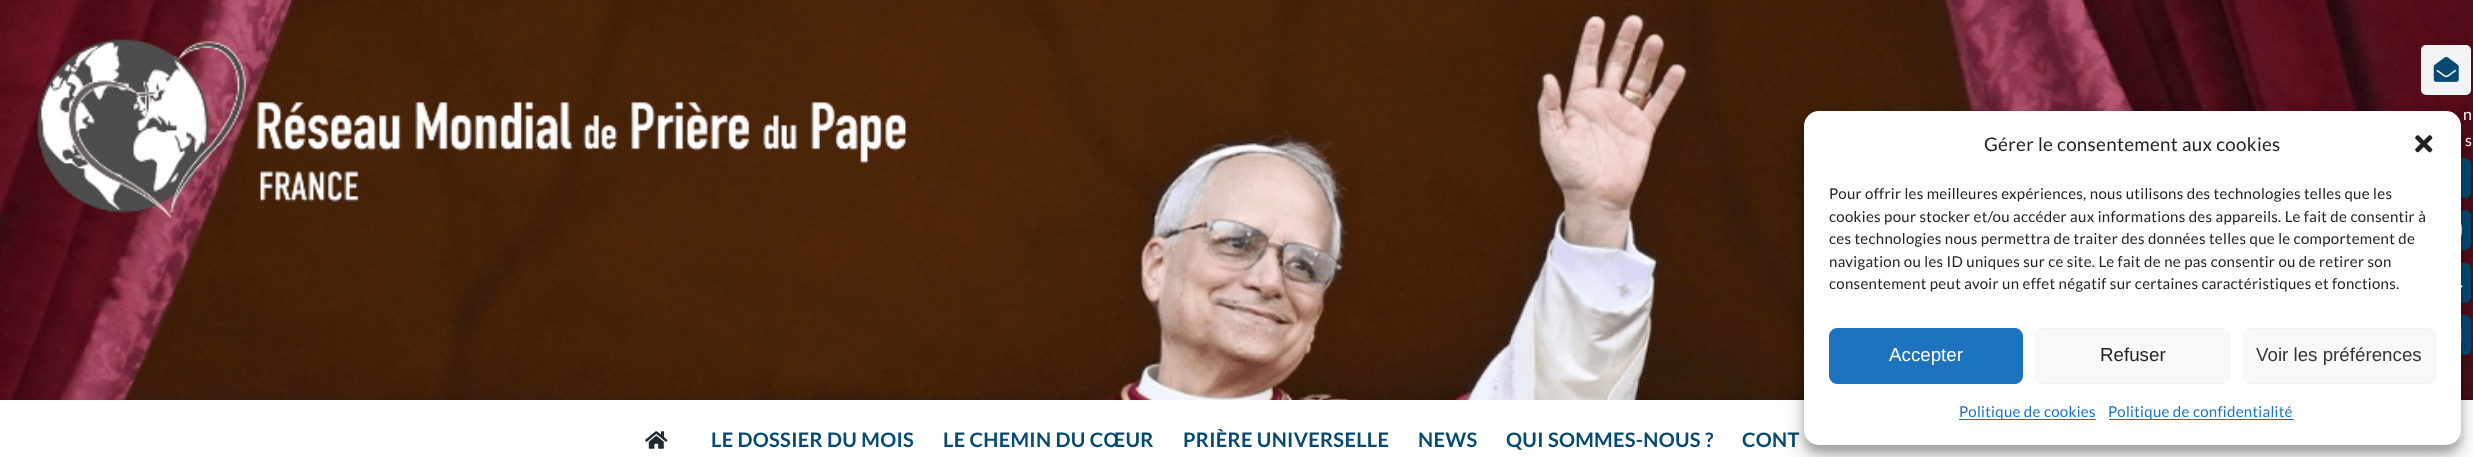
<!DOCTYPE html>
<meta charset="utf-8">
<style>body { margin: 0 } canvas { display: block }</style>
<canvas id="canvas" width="2473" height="457"></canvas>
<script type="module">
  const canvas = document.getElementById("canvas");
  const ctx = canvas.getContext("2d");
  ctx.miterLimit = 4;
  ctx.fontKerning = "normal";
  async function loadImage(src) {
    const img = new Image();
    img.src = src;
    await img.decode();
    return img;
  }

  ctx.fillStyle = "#ffffff";
  ctx.fillRect(0, 0, 2473, 457);
  ctx.drawImage(await loadImage("img1.png"), 0, 0, 2473, 400);
  ctx.fillStyle = "#f2f3f5";
  ctx.beginPath();
  ctx.roundRect(2421, 45, 50, 50, 5);
  ctx.fill();
  ctx.drawImage(await loadImage("img2.png"), 2433, 56, 26, 26);
  ctx.font = "16px Lato";
  ctx.fillStyle = "#ffffff";
  ctx.fillText("n", 2463, 120);
  ctx.fillText("s", 2465, 146);
  ctx.fillStyle = "#064a73";
  ctx.beginPath();
  ctx.roundRect(2431, 158, 40, 40, 6);
  ctx.fill();
  ctx.beginPath();
  ctx.roundRect(2431, 210, 40, 40, 6);
  ctx.fill();
  ctx.drawImage(await loadImage("img3.png"), 2461, 224, 1, 12);
  ctx.beginPath();
  ctx.roundRect(2431, 263, 40, 40, 6);
  ctx.fill();
  ctx.drawImage(await loadImage("img4.png"), 2461, 285, 2, 3);
  ctx.beginPath();
  ctx.roundRect(2431, 315, 40, 40, 6);
  ctx.fill();
  ctx.drawImage(await loadImage("img5.png"), 2461, 328, 1, 14);
  ctx.drawImage(await loadImage("img6.png"), 645, 431, 23, 18);
  ctx.letterSpacing = "0.3px";
  ctx.font = "bold 20px Lato";
  ctx.fillText("LE DOSSIER DU MOIS", 711, 447);
  ctx.fillText("LE CHEMIN DU CŒUR", 943, 447);
  ctx.fillText("PRIÈRE UNIVERSELLE", 1183, 447);
  ctx.fillText("NEWS", 1418, 447);
  ctx.fillText("QUI SOMMES-NOUS ?", 1506, 447);
  ctx.fillText("CONT", 1742, 447);
  ctx.fillStyle = "rgba(0, 0, 0, 0.23)";
  ctx.filter = "blur(4px)";
  ctx.beginPath();
  ctx.roundRect(1804, 119, 657, 334, 15);
  ctx.fill();
  ctx.filter = "none";
  ctx.fillStyle = "rgba(0, 0, 0, 0.19)";
  ctx.filter = "blur(12.5px)";
  ctx.beginPath();
  ctx.roundRect(1804, 124, 657, 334, 15);
  ctx.fill();
  ctx.filter = "none";
  ctx.fillStyle = "#ffffff";
  ctx.beginPath();
  ctx.roundRect(1804, 111, 657, 334, 15);
  ctx.fill();
  ctx.font = "18.75px Lato";
  ctx.fillStyle = "#222222";
  ctx.fillText("Gérer le consentement aux cookies", 1984, 151);
  ctx.drawImage(await loadImage("img7.png"), 2415, 135, 18, 18);
  ctx.font = "15px Lato";
  ctx.fillText("Pour offrir les meilleures expériences, nous utilisons des technologies telles que les", 1829, 199);
  ctx.fillText("cookies pour stocker et/ou accéder aux informations des appareils. Le fait de consentir à", 1829, 222);
  ctx.fillText("ces technologies nous permettra de traiter des données telles que le comportement de", 1829, 244);
  ctx.fillText("navigation ou les ID uniques sur ce site. Le fait de ne pas consentir ou de retirer son", 1829, 267);
  ctx.fillText("consentement peut avoir un effet négatif sur certaines caractéristiques et fonctions.", 1829, 289);
  ctx.fillStyle = "#1e73be";
  ctx.beginPath();
  ctx.roundRect(1829.5, 328.5, 193, 55, 7.5);
  ctx.fill();
  ctx.strokeStyle = "#1e73be";
  ctx.stroke();
  ctx.letterSpacing = "0px";
  ctx.font = "18.75px Liberation Sans";
  ctx.fillStyle = "#ffffff";
  ctx.fillText("Accepter", 1889, 361);
  ctx.fillStyle = "#f9f9f9";
  ctx.beginPath();
  ctx.roundRect(2035.5, 328.5, 194, 55, 7.5);
  ctx.fill();
  ctx.strokeStyle = "#f2f2f2";
  ctx.stroke();
  ctx.fillStyle = "#222222";
  ctx.fillText("Refuser", 2100, 361);
  ctx.fillStyle = "#f9f9f9";
  ctx.beginPath();
  ctx.roundRect(2243.5, 328.5, 192, 55, 7.5);
  ctx.fill();
  ctx.stroke();
  ctx.fillStyle = "#333333";
  ctx.fillText("Voir les préférences", 2256, 361);
  ctx.fillStyle = "#1e73be";
  ctx.fillRect(1959, 419, 137, 1);
  ctx.letterSpacing = "0.3px";
  ctx.font = "15px Lato";
  ctx.fillText("Politique de cookies", 1959, 417);
  ctx.fillRect(2109, 419, 185, 1);
  ctx.fillText("Politique de confidentialité", 2108, 417);
</script>
